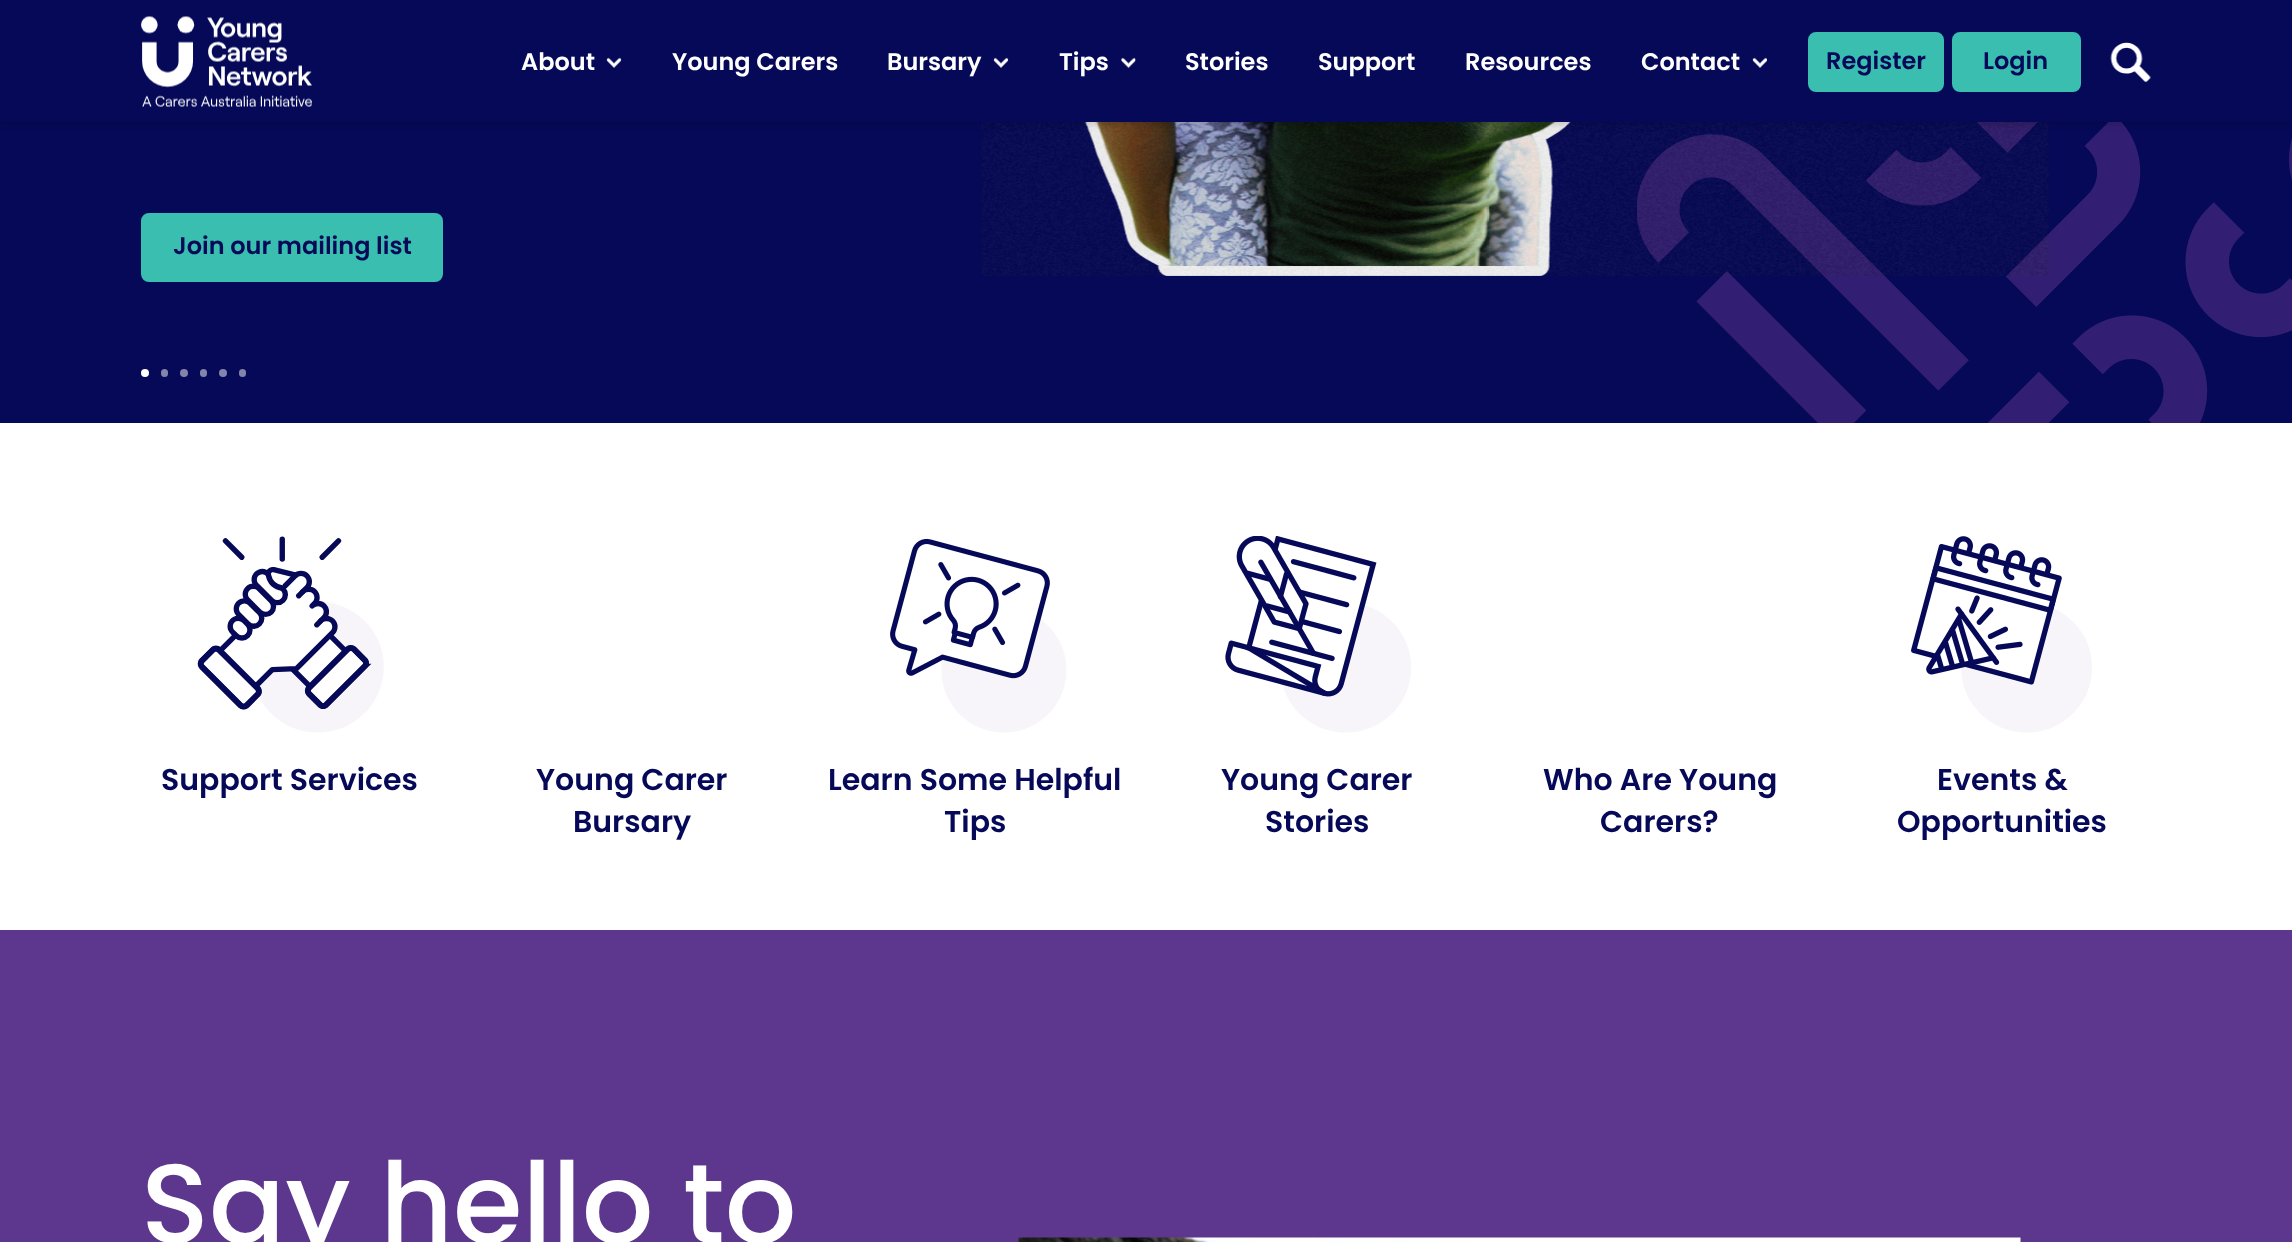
<!DOCTYPE html>
<meta charset="utf-8">
<style>body { margin: 0 } canvas { display: block }</style>
<canvas id="canvas" width="2292" height="1242"></canvas>
<script type="module">
  const canvas = document.getElementById("canvas");
  const ctx = canvas.getContext("2d");
  ctx.miterLimit = 4;
  ctx.fontKerning = "normal";
  async function loadImage(src) {
    const img = new Image();
    img.src = src;
    await img.decode();
    return img;
  }

  ctx.fillStyle = "#ffffff";
  ctx.fillRect(0, 0, 2292, 1242);
  ctx.fillStyle = "#060958";
  ctx.fillRect(0, 122, 2292, 301);
  ctx.drawImage(await loadImage("img7.png"), 1637, 122, 655, 301);
  ctx.drawImage(await loadImage("img6.png"), 981, 122, 1068, 154);
  ctx.fillStyle = "rgba(0, 0, 0, 0.15)";
  ctx.filter = "blur(3px)";
  ctx.beginPath();
  ctx.rect(0, 3, 2292, 122);
  ctx.fill();
  ctx.filter = "none";
  ctx.fillStyle = "#060958";
  ctx.fillRect(0, 0, 2292, 122);
  ctx.drawImage(await loadImage("img1.png"), 141, 16, 171, 91);
  ctx.font = "600 24px Poppins";
  ctx.fillStyle = "#ffffff";
  ctx.fillText("About", 521, 70);
  ctx.drawImage(await loadImage("img2.png"), 606, 57, 16, 11);
  ctx.fillText("Young Carers", 672, 70);
  ctx.fillText("Bursary", 887, 70);
  ctx.drawImage(await loadImage("img2.png"), 993, 57, 16, 11);
  ctx.fillText("Tips", 1059, 70);
  ctx.drawImage(await loadImage("img3.png"), 1121, 57, 15, 12);
  ctx.fillText("Stories", 1185, 70);
  ctx.fillText("Support", 1318, 70);
  ctx.fillText("Resources", 1465, 70);
  ctx.fillText("Contact", 1641, 70);
  ctx.drawImage(await loadImage("img4.png"), 1752, 57, 15, 11);
  ctx.fillStyle = "#39beb0";
  ctx.beginPath();
  ctx.roundRect(1809, 33, 134, 58, 7);
  ctx.fill();
  ctx.strokeStyle = "#39beb0";
  ctx.lineWidth = 2;
  ctx.stroke();
  ctx.fillStyle = "#060958";
  ctx.fillText("Register", 1826, 69);
  ctx.fillStyle = "#39beb0";
  ctx.beginPath();
  ctx.roundRect(1953, 33, 127, 58, 7);
  ctx.fill();
  ctx.stroke();
  ctx.fillStyle = "#060958";
  ctx.fillText("Login", 1983, 69);
  ctx.drawImage(await loadImage("img5.png"), 2110, 42, 41, 40);
  ctx.fillStyle = "#39beb0";
  ctx.beginPath();
  ctx.roundRect(142, 214, 300, 67, 7);
  ctx.fill();
  ctx.stroke();
  ctx.fillStyle = "#060958";
  ctx.fillText("Join our mailing list", 173, 254);
  ctx.fillStyle = "#ffffff";
  ctx.beginPath();
  ctx.arc(145, 373, 4, 0, Math.PI * 2);
  ctx.fill();
  ctx.fillStyle = "#8384ac";
  ctx.beginPath();
  ctx.roundRect(161, 369, 7, 8, 3.5);
  ctx.fill();
  ctx.beginPath();
  ctx.arc(184, 373, 4, 0, Math.PI * 2);
  ctx.fill();
  ctx.beginPath();
  ctx.roundRect(200, 369, 7, 8, 3.5);
  ctx.fill();
  ctx.beginPath();
  ctx.arc(223, 373, 4, 0, Math.PI * 2);
  ctx.fill();
  ctx.beginPath();
  ctx.roundRect(239, 369, 7, 8, 3.5);
  ctx.fill();
  ctx.drawImage(await loadImage("img8.png"), 197, 536, 187, 197);
  ctx.font = "600 30px Poppins";
  ctx.fillStyle = "#060958";
  ctx.fillText("Support Services", 161, 790);
  ctx.fillText("Young Carer", 536, 790);
  ctx.fillText("Bursary", 573, 832);
  ctx.drawImage(await loadImage("img9.png"), 890, 538, 177, 195);
  ctx.fillText("Learn Some Helpful", 828, 790);
  ctx.fillText("Tips", 944, 832);
  ctx.drawImage(await loadImage("img10.png"), 1225, 536, 186, 197);
  ctx.fillText("Young Carer", 1221, 790);
  ctx.fillText("Stories", 1265, 832);
  ctx.fillText("Who Are Young", 1543, 790);
  ctx.fillText("Carers?", 1600, 832);
  ctx.drawImage(await loadImage("img11.png"), 1911, 536, 181, 197);
  ctx.fillText("Events &", 1937, 790);
  ctx.fillText("Opportunities", 1897, 832);
  ctx.fillStyle = "#5d368e";
  ctx.fillRect(0, 930, 2292, 312);
  ctx.font = "500 112.5px Poppins";
  ctx.fillStyle = "#ffffff";
  ctx.fillText("Say hello to", 141, 1243);
  ctx.drawImage(await loadImage("img12.png"), 1018, 1237, 1003, 5);
</script>
